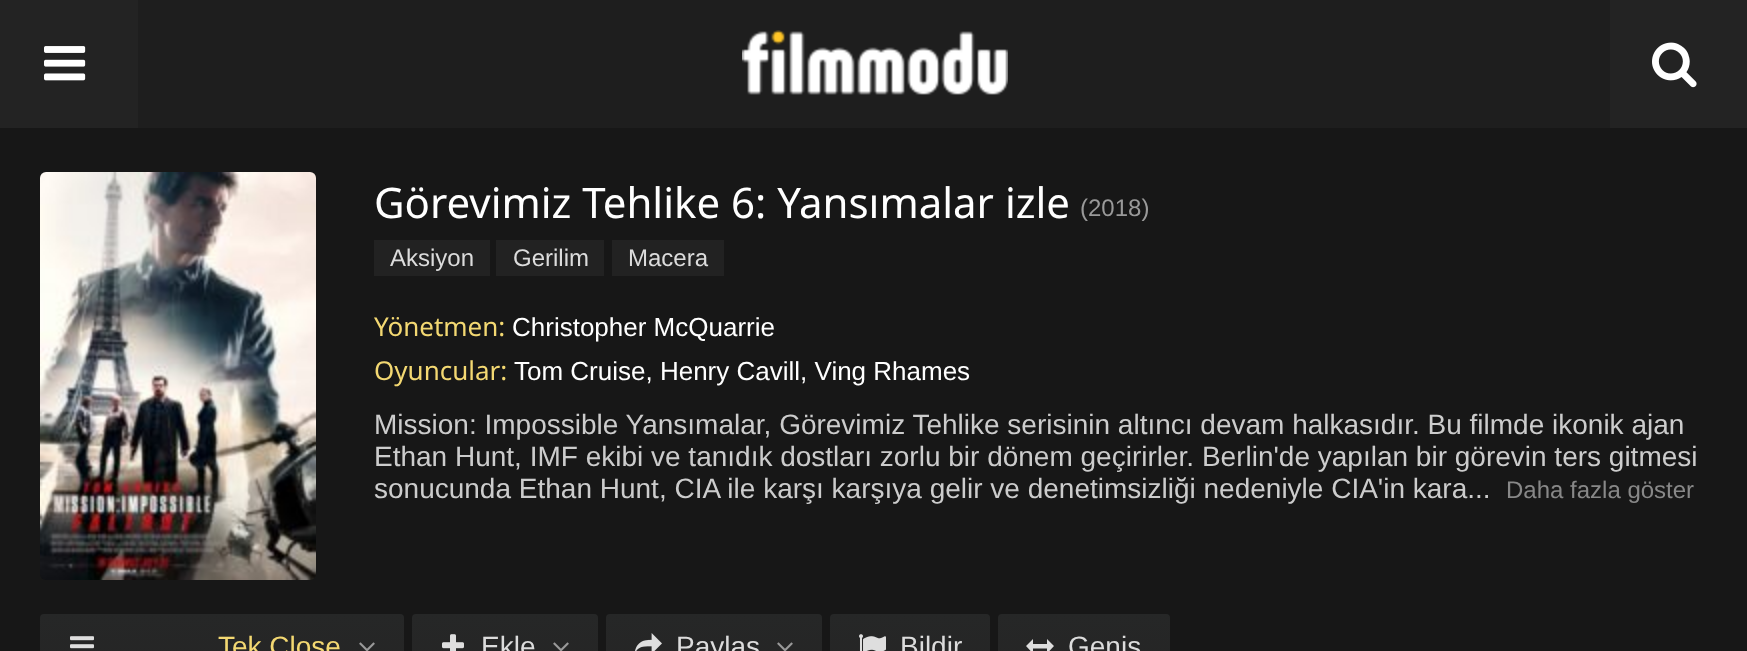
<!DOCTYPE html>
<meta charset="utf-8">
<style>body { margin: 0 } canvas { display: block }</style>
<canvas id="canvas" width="1747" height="651"></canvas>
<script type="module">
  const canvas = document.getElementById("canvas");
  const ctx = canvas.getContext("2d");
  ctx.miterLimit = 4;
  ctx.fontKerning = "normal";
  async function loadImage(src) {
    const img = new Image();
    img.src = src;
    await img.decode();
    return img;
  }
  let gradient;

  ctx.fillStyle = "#171717";
  ctx.fillRect(0, 0, 1747, 651);
  ctx.fillStyle = "#1e1e1e";
  ctx.fillRect(138, 0, 1472, 128);
  ctx.fillStyle = "#232323";
  ctx.fillRect(0, 0, 138, 128);
  ctx.drawImage(await loadImage("img1.png"), 44, 46, 42, 35);
  ctx.drawImage(await loadImage("img2.png"), 742, 30, 266, 65);
  ctx.fillRect(1610, 0, 137, 128);
  ctx.drawImage(await loadImage("img3.png"), 1652, 42, 45, 46);
  ctx.drawImage(await loadImage("img4.png"), 40, 172, 276, 408);
  ctx.font = "42px Noto Sans";
  ctx.fillStyle = "#ffffff";
  ctx.fillText("Görevimiz Tehlike 6: Yansımalar izle", 374, 218);
  ctx.font = "24px Liberation Sans";
  ctx.fillStyle = "#999999";
  ctx.fillText("(2018)", 1080, 216);
  ctx.fillStyle = "#222222";
  ctx.fillRect(374, 240, 116, 36);
  ctx.fillStyle = "#dcdcdc";
  ctx.fillText("Aksiyon", 390, 266);
  ctx.fillStyle = "#222222";
  ctx.fillRect(496, 240, 108, 36);
  ctx.fillStyle = "#dcdcdc";
  ctx.fillText("Gerilim", 513, 266);
  ctx.fillStyle = "#222222";
  ctx.fillRect(612, 240, 112, 36);
  ctx.fillStyle = "#dcdcdc";
  ctx.fillText("Macera", 628, 266);
  ctx.font = "26px Noto Sans";
  ctx.fillStyle = "#f3d872";
  ctx.fillText("Yönetmen:", 374, 336);
  ctx.font = "26px Liberation Sans";
  ctx.fillStyle = "#ffffff";
  ctx.fillText("Christopher McQuarrie", 512, 336);
  ctx.font = "26px Noto Sans";
  ctx.fillStyle = "#f3d872";
  ctx.fillText("Oyuncular:", 374, 380);
  ctx.font = "26px Liberation Sans";
  ctx.fillStyle = "#ffffff";
  ctx.fillText("Tom Cruise, Henry Cavill, Ving Rhames", 514, 380);
  ctx.font = "28px Liberation Sans";
  ctx.fillStyle = "#cccccc";
  ctx.fillText("Mission: Impossible Yansımalar, Görevimiz Tehlike serisinin altıncı devam halkasıdır. Bu filmde ikonik ajan", 374, 434);
  ctx.fillText("Ethan Hunt, IMF ekibi ve tanıdık dostları zorlu bir dönem geçirirler. Berlin'de yapılan bir görevin ters gitmesi", 374, 466);
  ctx.fillText("sonucunda Ethan Hunt, CIA ile karşı karşıya gelir ve denetimsizliği nedeniyle CIA'in kara...", 374, 498);
  ctx.font = "24px Liberation Sans";
  ctx.fillStyle = "#888888";
  ctx.fillText("Daha fazla göster", 1506, 498);
  gradient = ctx.createLinearGradient(222, 614, 222, 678);
  gradient.addColorStop(0, "#262727");
  gradient.addColorStop(1, "#252525");
  ctx.fillStyle = gradient;
  ctx.beginPath();
  ctx.roundRect(40, 614, 364, 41, 4);
  ctx.fill();
  ctx.drawImage(await loadImage("img5.png"), 70, 636, 24, 13);
  ctx.font = "28px Liberation Sans";
  ctx.fillStyle = "#f3d872";
  ctx.fillText("Tek Close", 218, 656);
  ctx.drawImage(await loadImage("img6.png"), 359, 642, 16, 9);
  gradient = ctx.createLinearGradient(505, 614, 505, 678);
  gradient.addColorStop(0, "#262727");
  gradient.addColorStop(1, "#252525");
  ctx.fillStyle = gradient;
  ctx.beginPath();
  ctx.roundRect(412, 614, 186, 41, 4);
  ctx.fill();
  ctx.drawImage(await loadImage("img7.png"), 442, 634, 22, 17);
  ctx.fillStyle = "#dcdcdc";
  ctx.fillText("Ekle", 481, 656);
  ctx.drawImage(await loadImage("img6.png"), 553, 642, 16, 9);
  gradient = ctx.createLinearGradient(714, 614, 714, 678);
  gradient.addColorStop(0, "#262727");
  gradient.addColorStop(1, "#252525");
  ctx.fillStyle = gradient;
  ctx.beginPath();
  ctx.roundRect(606, 614, 216, 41, 4);
  ctx.fill();
  ctx.drawImage(await loadImage("img8.png"), 635, 633, 27, 18);
  ctx.fillStyle = "#dcdcdc";
  ctx.fillText("Paylaş", 676, 656);
  ctx.drawImage(await loadImage("img6.png"), 777, 642, 16, 9);
  gradient = ctx.createLinearGradient(910, 614, 910, 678);
  gradient.addColorStop(0, "#262727");
  gradient.addColorStop(1, "#252525");
  ctx.fillStyle = gradient;
  ctx.beginPath();
  ctx.roundRect(830, 614, 160, 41, 4);
  ctx.fill();
  ctx.drawImage(await loadImage("img9.png"), 859, 634, 27, 17);
  ctx.fillStyle = "#dcdcdc";
  ctx.fillText("Bildir", 900, 656);
  gradient = ctx.createLinearGradient(1084, 614, 1084, 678);
  gradient.addColorStop(0, "#262727");
  gradient.addColorStop(1, "#252525");
  ctx.fillStyle = gradient;
  ctx.beginPath();
  ctx.roundRect(998, 614, 172, 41, 4);
  ctx.fill();
  ctx.fillStyle = "#dedede";
  ctx.beginPath();
  ctx.moveTo(1026, 646);
  ctx.lineTo(1033, 639);
  ctx.lineTo(1033, 644);
  ctx.lineTo(1047, 644);
  ctx.lineTo(1047, 639);
  ctx.lineTo(1054, 646);
  ctx.lineTo(1047, 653.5);
  ctx.lineTo(1047, 648.5);
  ctx.lineTo(1033, 648.5);
  ctx.lineTo(1033, 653.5);
  ctx.closePath();
  ctx.fill();
  ctx.fillStyle = "#dcdcdc";
  ctx.fillText("Geniş", 1068, 656);
</script>
